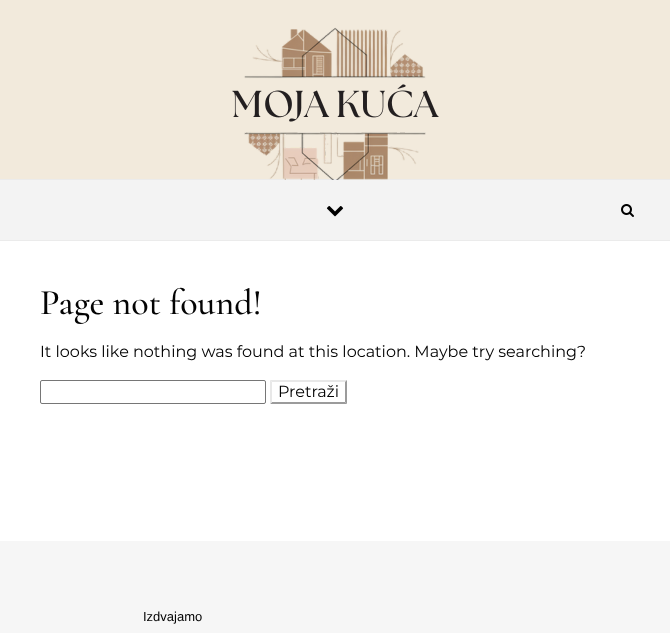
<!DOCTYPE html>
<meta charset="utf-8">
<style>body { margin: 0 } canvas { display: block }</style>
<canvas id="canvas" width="670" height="633"></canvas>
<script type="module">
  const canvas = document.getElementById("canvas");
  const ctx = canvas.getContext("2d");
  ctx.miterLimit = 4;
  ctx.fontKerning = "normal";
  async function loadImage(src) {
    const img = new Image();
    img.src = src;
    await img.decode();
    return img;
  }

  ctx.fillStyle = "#f2eadc";
  ctx.fillRect(0, 0, 670, 633);
  ctx.fillStyle = "#ebebeb";
  ctx.fillRect(0, 179, 670, 1);
  ctx.drawImage(await loadImage("img1.png"), 232, 27, 207, 153);
  ctx.fillStyle = "#f3f3f3";
  ctx.fillRect(0, 180, 670, 60);
  ctx.fillStyle = "#ebebeb";
  ctx.fillRect(0, 240, 670, 1);
  ctx.drawImage(await loadImage("img2.png"), 326, 206, 18, 11);
  ctx.drawImage(await loadImage("img3.png"), 621, 204, 13, 13);
  ctx.fillStyle = "#ffffff";
  ctx.fillRect(0, 241, 670, 300);
  ctx.font = "500 36px Cormorant Garamond";
  ctx.fillStyle = "#030303";
  ctx.fillText("Page not found!", 40, 314);
  ctx.font = "100 16px Montserrat";
  ctx.fillText("It looks like nothing was found at this location. Maybe try searching?", 40, 357);
  ctx.beginPath();
  ctx.roundRect(40.5, 380.5, 225, 23, 1.5);
  ctx.strokeStyle = "#767676";
  ctx.stroke();
  ctx.fillStyle = "#e8e8e8";
  ctx.beginPath();
  ctx.moveTo(270, 380);
  ctx.lineTo(347, 380);
  ctx.lineTo(345, 382);
  ctx.lineTo(272, 382);
  ctx.closePath();
  ctx.fill();
  ctx.fillStyle = "#9b9b9b";
  ctx.beginPath();
  ctx.moveTo(347, 380);
  ctx.lineTo(347, 404);
  ctx.lineTo(345, 402);
  ctx.lineTo(345, 382);
  ctx.closePath();
  ctx.fill();
  ctx.beginPath();
  ctx.moveTo(347, 404);
  ctx.lineTo(270, 404);
  ctx.lineTo(272, 402);
  ctx.lineTo(345, 402);
  ctx.closePath();
  ctx.fill();
  ctx.fillStyle = "#e8e8e8";
  ctx.beginPath();
  ctx.moveTo(270, 404);
  ctx.lineTo(270, 380);
  ctx.lineTo(272, 382);
  ctx.lineTo(272, 402);
  ctx.closePath();
  ctx.fill();
  ctx.fillStyle = "#030303";
  ctx.fillText("Pretraži", 278, 397);
  ctx.fillStyle = "#f6f6f6";
  ctx.fillRect(0, 541, 670, 92);
  ctx.font = "13px Liberation Sans";
  ctx.fillStyle = "#030303";
  ctx.fillText("Izdvajamo", 143, 621);
</script>
